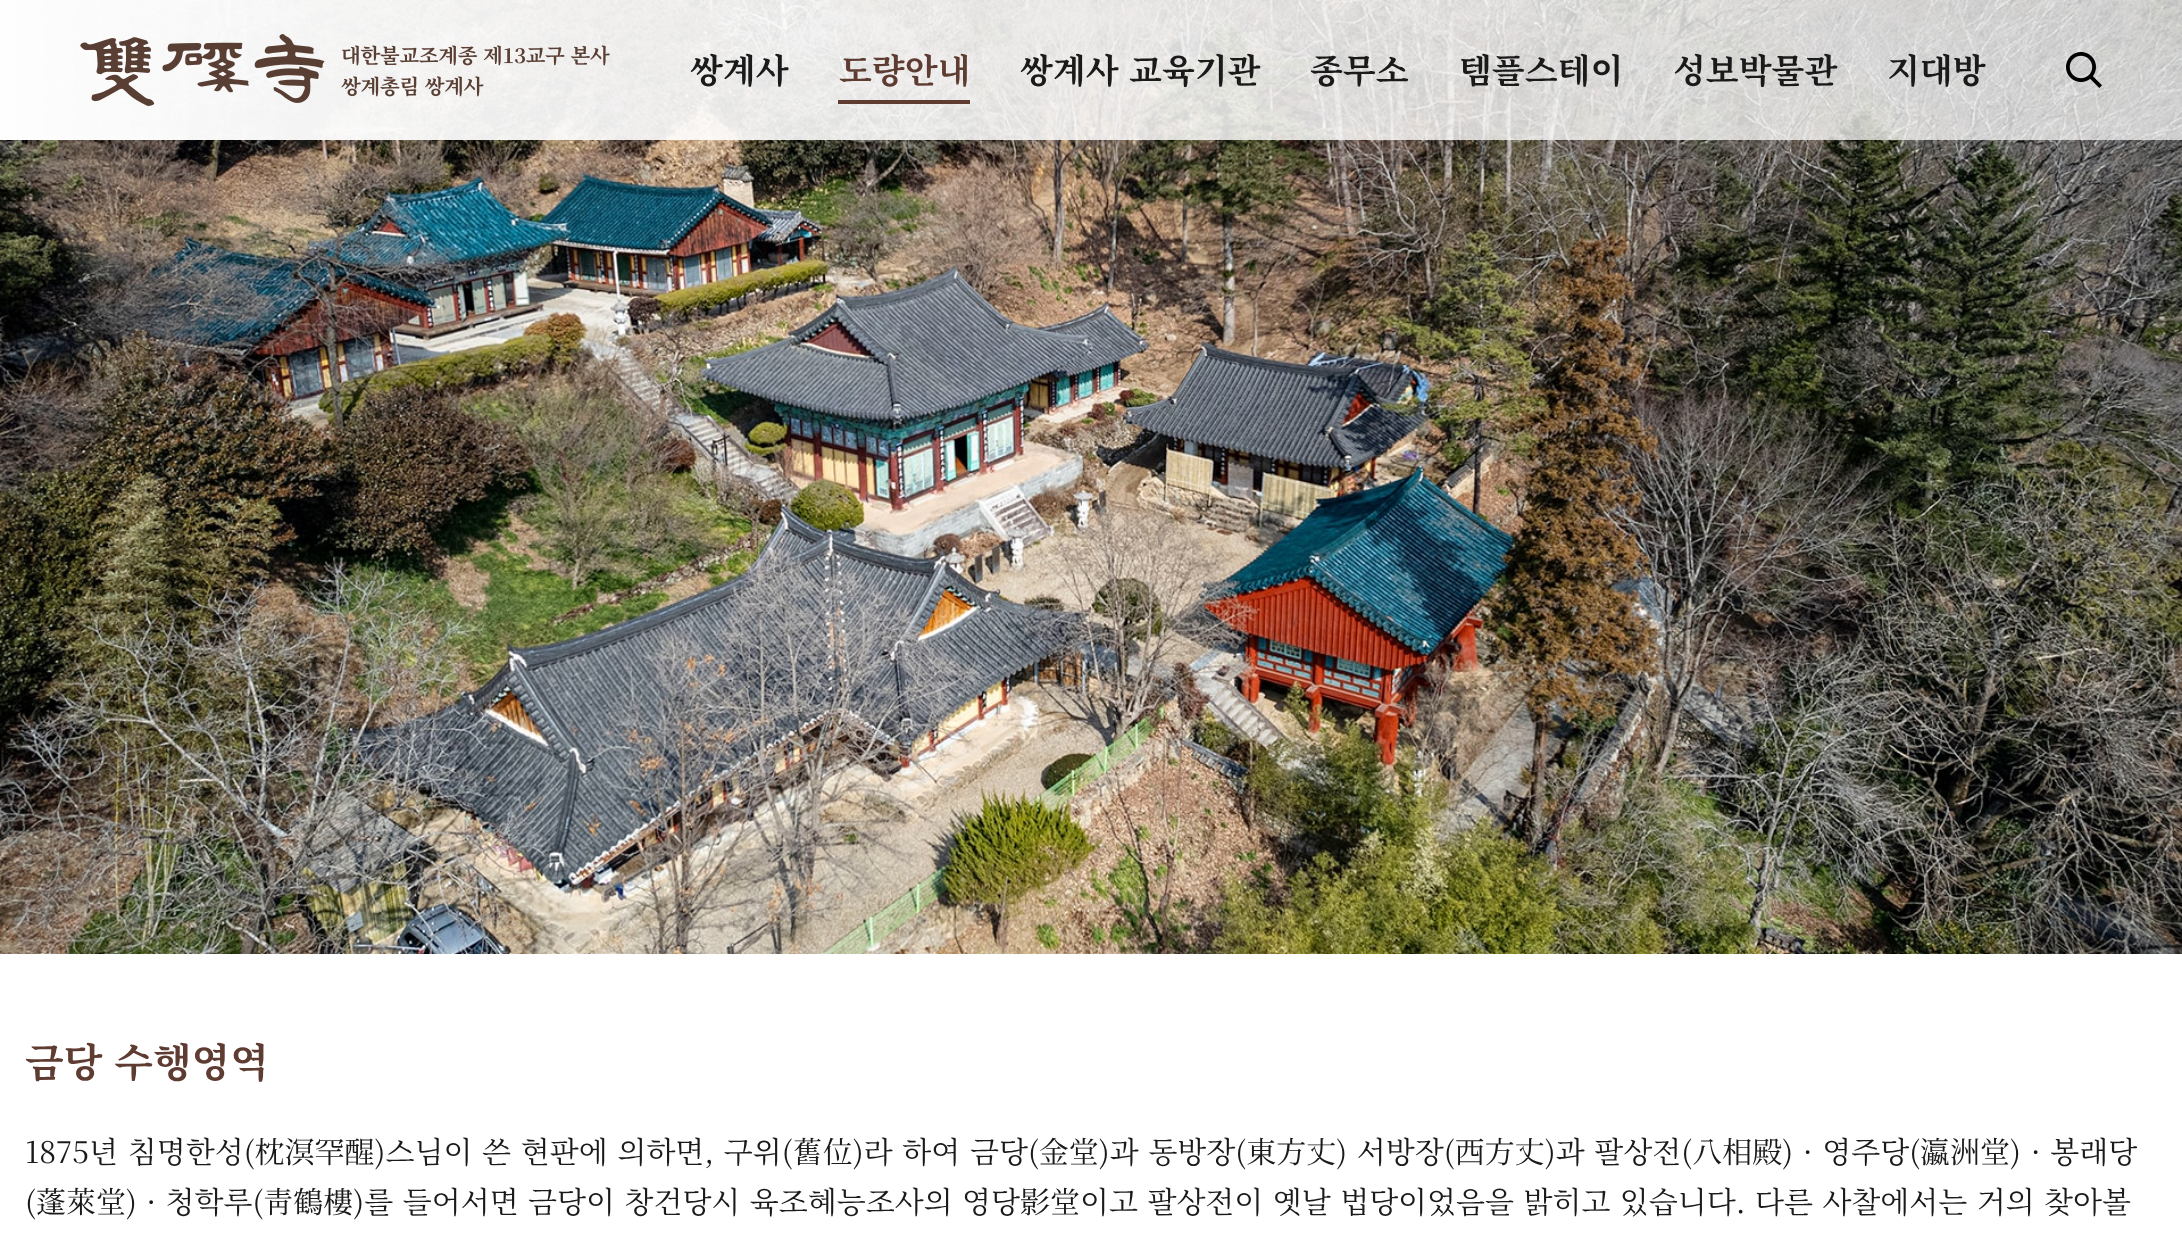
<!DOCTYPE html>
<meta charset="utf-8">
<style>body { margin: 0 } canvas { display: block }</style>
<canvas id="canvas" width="2182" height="1235"></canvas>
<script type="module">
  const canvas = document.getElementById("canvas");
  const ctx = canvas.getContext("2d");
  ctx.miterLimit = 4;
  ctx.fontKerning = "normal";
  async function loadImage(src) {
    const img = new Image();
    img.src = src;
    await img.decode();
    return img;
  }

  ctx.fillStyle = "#ffffff";
  ctx.fillRect(0, 0, 2182, 1235);
  ctx.drawImage(await loadImage("img3.png"), 0, 0, 2182, 954);
  ctx.drawImage(await loadImage("img1.png"), 80, 34, 530, 72);
  ctx.font = "bold 34px Noto Serif KR";
  ctx.fillStyle = "#1a1a1a";
  ctx.fillText("쌍계사", 690, 83);
  ctx.fillStyle = "#5e3c32";
  ctx.fillText("도량안내", 839, 83);
  ctx.fillRect(838, 100, 132, 4);
  ctx.wordSpacing = "2px";
  ctx.fillStyle = "#1a1a1a";
  ctx.fillText("쌍계사 교육기관", 1020, 83);
  ctx.wordSpacing = "0px";
  ctx.fillText("종무소", 1310, 83);
  ctx.fillText("템플스테이", 1459, 83);
  ctx.fillText("성보박물관", 1673, 83);
  ctx.fillText("지대방", 1887, 83);
  ctx.drawImage(await loadImage("img2.png"), 2066, 52, 36, 36);
  ctx.wordSpacing = "2px";
  ctx.font = "bold 40px Noto Serif KR";
  ctx.fillStyle = "#5e3c32";
  ctx.fillText("금당 수행영역", 25, 1077);
  ctx.font = "30px Noto Serif KR";
  ctx.fillStyle = "#1a1a1a";
  ctx.fillText("1875년 침명한성(枕溟罕醒)스님이 쓴 현판에 의하면, 구위(舊位)라 하여 금당(金堂)과 동방장(東方丈) 서방장(西方丈)과 팔상전(八相殿) · 영주당(瀛洲堂) · 봉래당", 25, 1163);
  ctx.wordSpacing = "1.75px";
  ctx.fillText("(蓬萊堂) · 청학루(靑鶴樓)를 들어서면 금당이 창건당시 육조혜능조사의 영당影堂이고 팔상전이 옛날 법당이었음을 밝히고 있습니다. 다른 사찰에서는 거의 찾아볼", 25, 1213);
</script>
